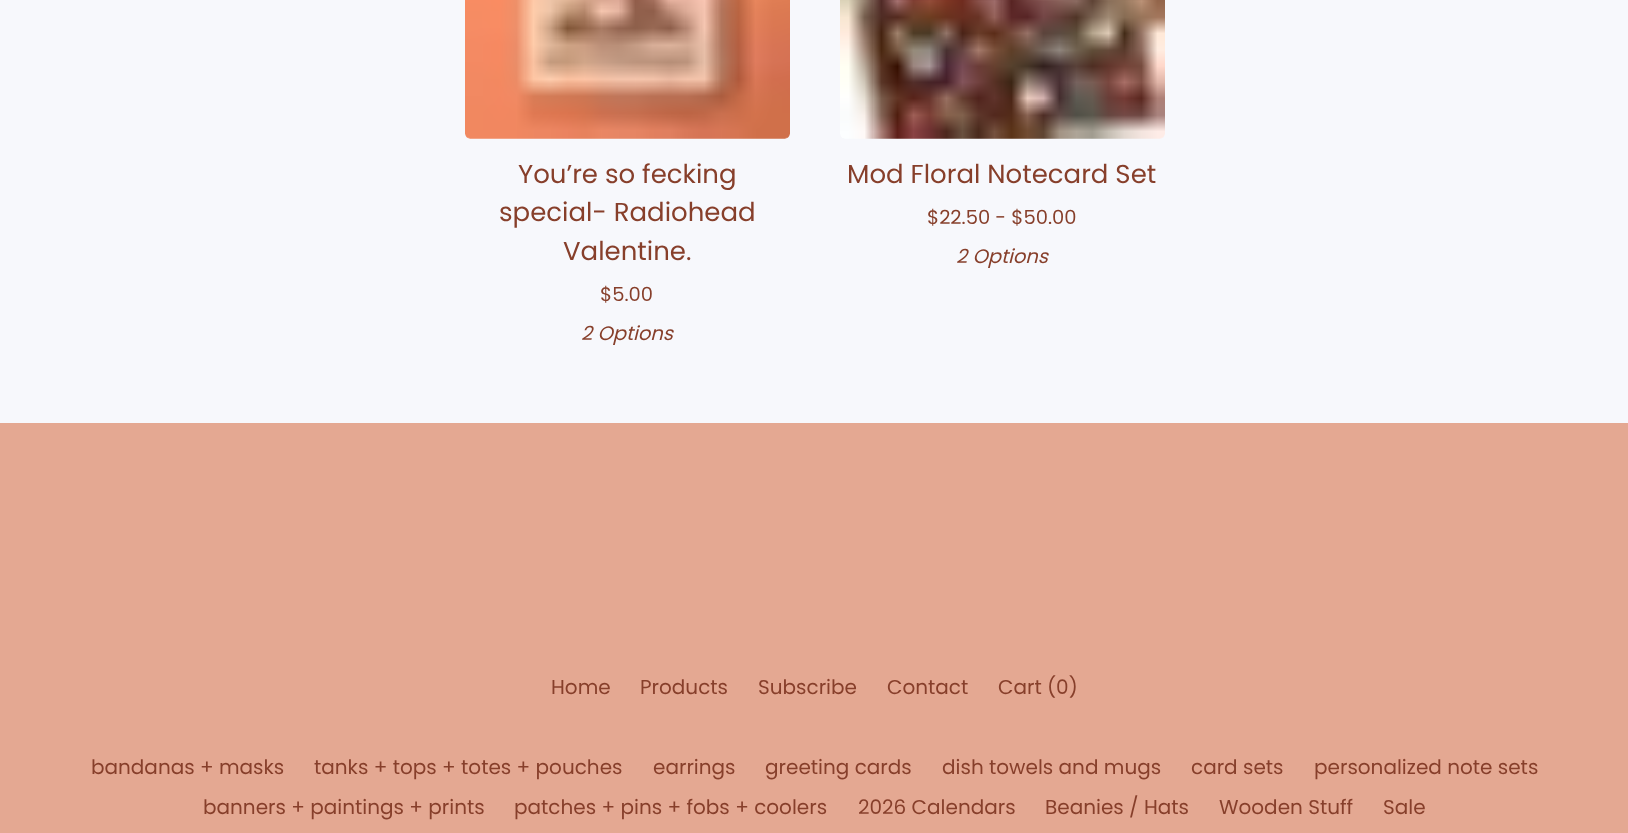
<!DOCTYPE html>
<meta charset="utf-8">
<style>body { margin: 0 } canvas { display: block }</style>
<canvas id="canvas" width="1628" height="833"></canvas>
<script type="module">
  const canvas = document.getElementById("canvas");
  const ctx = canvas.getContext("2d");
  ctx.miterLimit = 4;
  ctx.fontKerning = "normal";
  async function loadImage(src) {
    const img = new Image();
    img.src = src;
    await img.decode();
    return img;
  }

  ctx.fillStyle = "#e4a892";
  ctx.fillRect(0, 0, 1628, 833);
  ctx.fillStyle = "#f7f8fc";
  ctx.fillRect(0, 0, 1628, 423);
  ctx.drawImage(await loadImage("img1.png"), 465, 0, 325, 139);
  ctx.font = "26px Poppins";
  ctx.fillStyle = "#873f2b";
  ctx.fillText("You’re so fecking", 518, 183);
  ctx.fillText("special- Radiohead", 499, 221);
  ctx.fillText("Valentine.", 563, 260);
  ctx.font = "19.5px Poppins";
  ctx.fillText("$5.00", 600, 301);
  ctx.font = "italic 19.5px Poppins";
  ctx.fillText("2 Options", 581, 340);
  ctx.drawImage(await loadImage("img2.png"), 840, 0, 325, 139);
  ctx.font = "26px Poppins";
  ctx.fillText("Mod Floral Notecard Set", 847, 183);
  ctx.font = "19.5px Poppins";
  ctx.fillText("$22.50 - $50.00", 927, 224);
  ctx.font = "italic 19.5px Poppins";
  ctx.fillText("2 Options", 956, 263);
  ctx.font = "20px Poppins";
  ctx.fillText("Home", 551, 694);
  ctx.fillText("Products", 640, 694);
  ctx.fillText("Subscribe", 758, 694);
  ctx.fillText("Contact", 887, 694);
  ctx.fillText("Cart (0)", 998, 694);
  ctx.fillText("bandanas + masks", 91, 774);
  ctx.fillText("tanks + tops + totes + pouches", 314, 774);
  ctx.fillText("earrings", 653, 774);
  ctx.fillText("greeting cards", 765, 774);
  ctx.fillText("dish towels and mugs", 942, 774);
  ctx.fillText("card sets", 1191, 774);
  ctx.fillText("personalized note sets", 1314, 774);
  ctx.fillText("banners + paintings + prints", 203, 814);
  ctx.fillText("patches + pins + fobs + coolers", 514, 814);
  ctx.fillText("2026 Calendars", 858, 814);
  ctx.fillText("Beanies / Hats", 1045, 814);
  ctx.fillText("Wooden Stuff", 1219, 814);
  ctx.fillText("Sale", 1383, 814);
</script>
